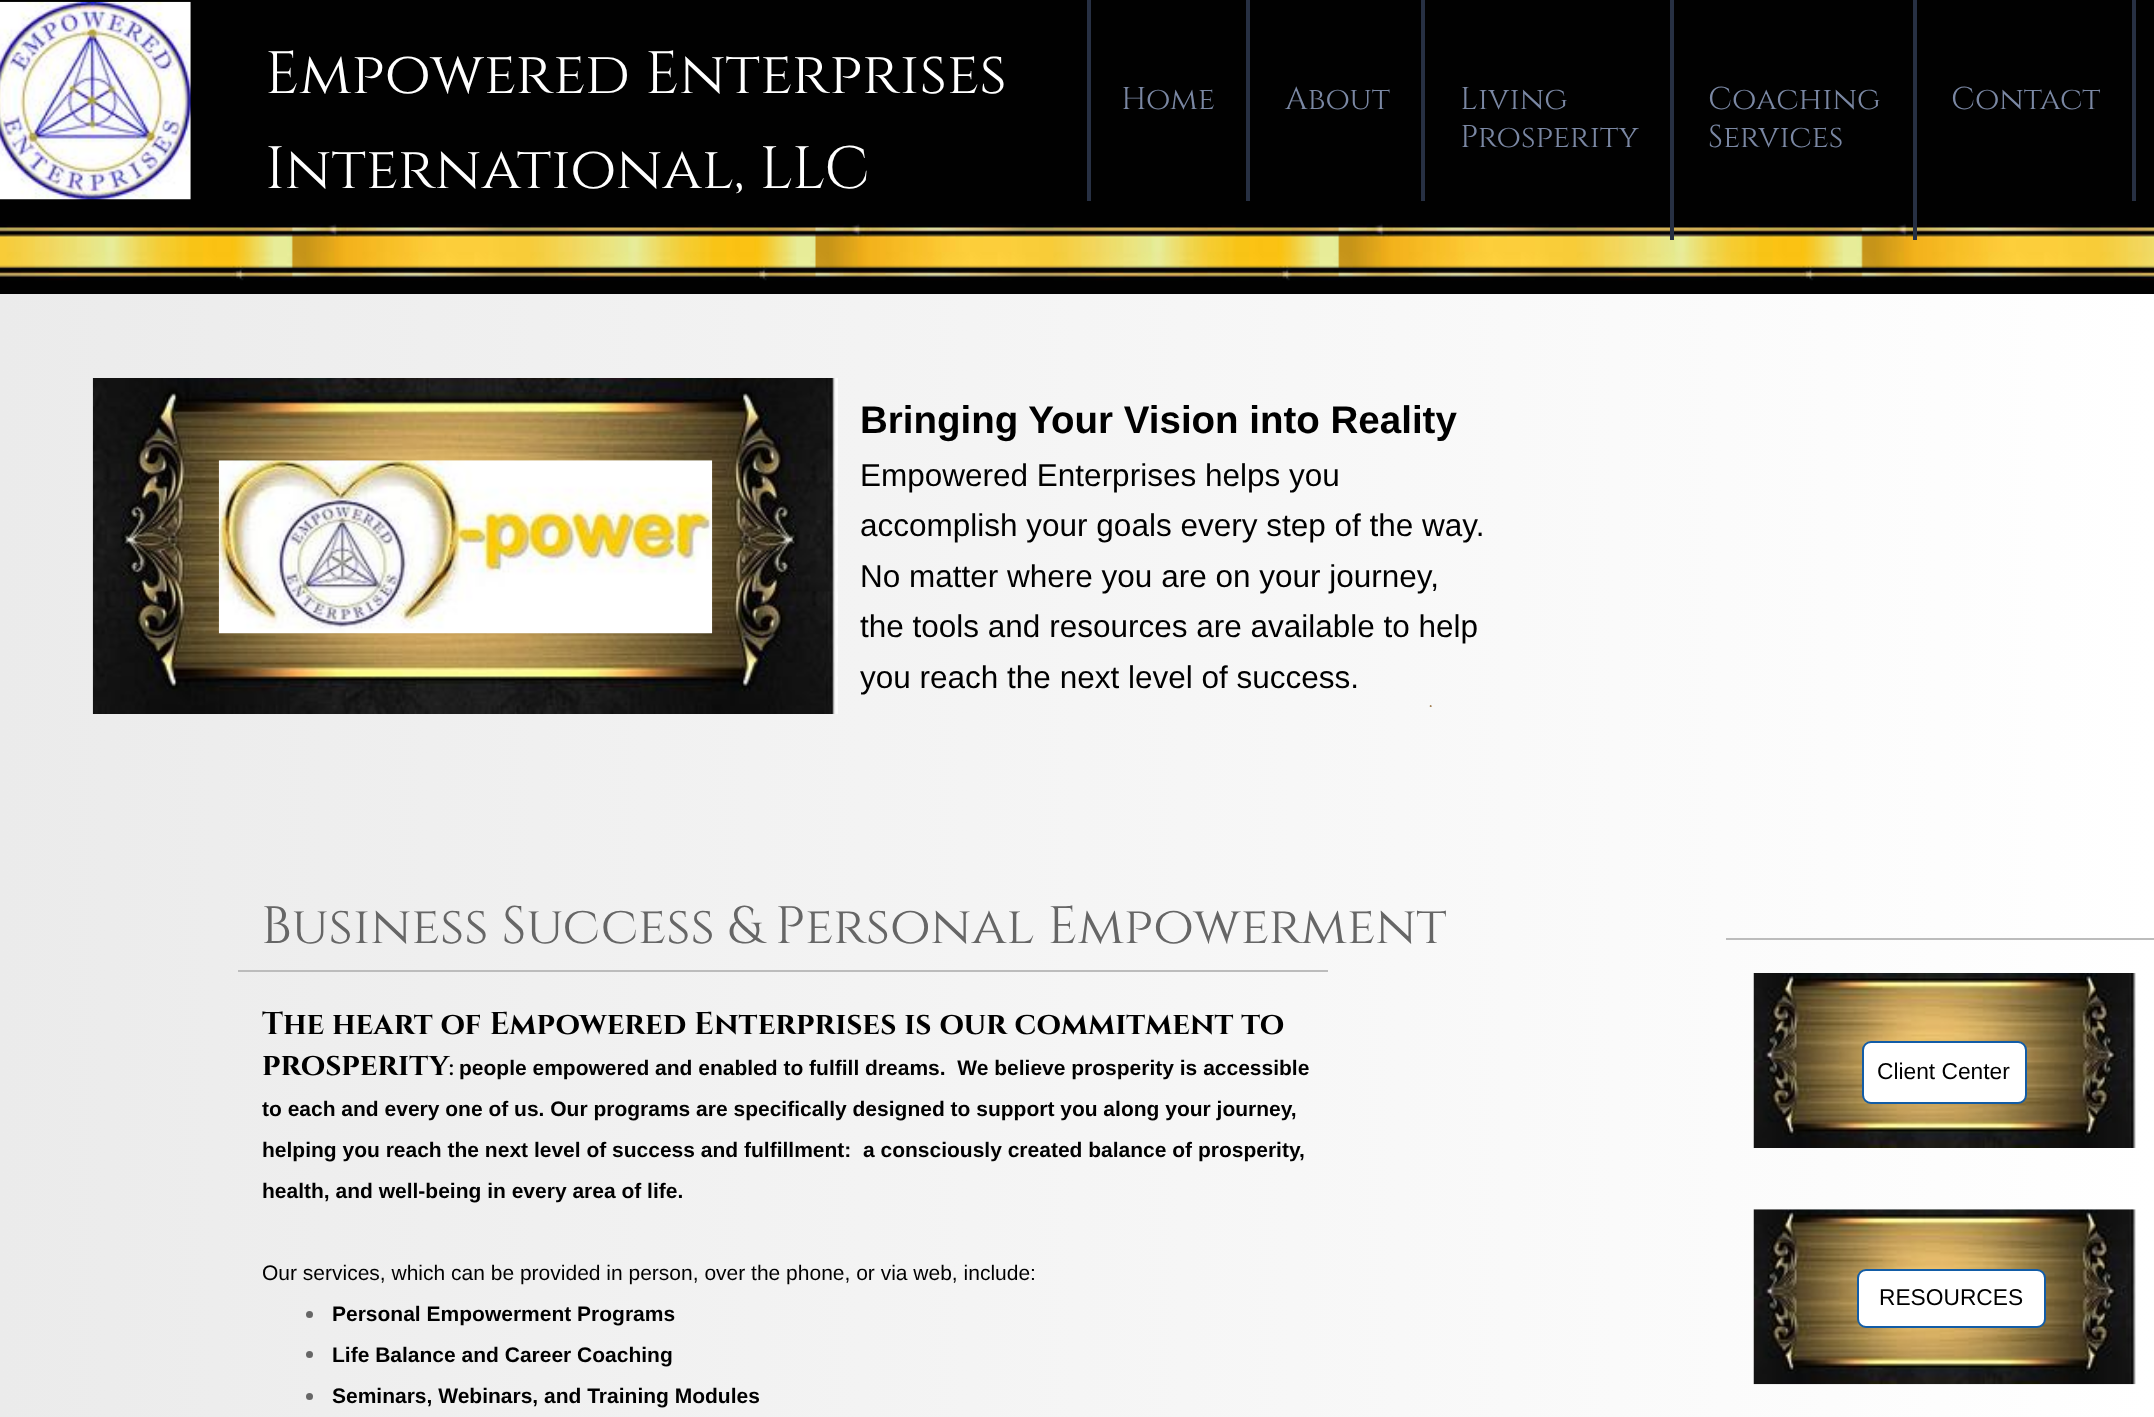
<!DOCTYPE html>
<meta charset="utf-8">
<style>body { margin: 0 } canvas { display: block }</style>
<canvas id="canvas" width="2154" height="1417"></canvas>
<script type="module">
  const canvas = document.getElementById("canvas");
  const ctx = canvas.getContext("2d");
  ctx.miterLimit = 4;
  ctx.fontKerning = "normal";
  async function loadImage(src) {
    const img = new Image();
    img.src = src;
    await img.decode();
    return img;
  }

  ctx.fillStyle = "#ffffff";
  ctx.fillRect(0, 0, 2154, 1417);
  ctx.drawImage(await loadImage("img1.png"), 0, 0, 2154, 1417);
  ctx.drawImage(await loadImage("img2.png"), 0, 1, 191, 199);
  ctx.font = "59.5px Cinzel";
  ctx.fillText("Empowered Enterprises", 265, 93);
  ctx.fillText("International, LLC", 265, 188);
  ctx.fillStyle = "#273043";
  ctx.fillRect(1246, 0, 4, 201);
  ctx.fillRect(1087, 0, 4, 201);
  ctx.font = "31.5px Cinzel";
  ctx.fillStyle = "#7a87a3";
  ctx.fillText("Home", 1121, 109);
  ctx.fillText("About", 1285, 109);
  ctx.fillStyle = "#273043";
  ctx.fillRect(1421, 0, 4, 201);
  ctx.fillStyle = "#7a87a3";
  ctx.fillText("Living", 1460, 109);
  ctx.fillStyle = "#273043";
  ctx.fillRect(1670, 0, 4, 240);
  ctx.fillStyle = "#7a87a3";
  ctx.fillText("Prosperity", 1460, 147);
  ctx.fillText("Coaching", 1708, 109);
  ctx.fillStyle = "#273043";
  ctx.fillRect(1913, 0, 4, 240);
  ctx.fillStyle = "#7a87a3";
  ctx.fillText("Services", 1708, 147);
  ctx.fillText("Contact", 1951, 109);
  ctx.fillStyle = "#273043";
  ctx.fillRect(2132, 0, 4, 201);
  ctx.drawImage(await loadImage("img3.png"), 92, 378, 746, 336);
  ctx.font = "bold 38.5px Liberation Sans";
  ctx.fillStyle = "#000000";
  ctx.fillText("Bringing Your Vision into Reality", 860, 433);
  ctx.font = "31.5px Liberation Sans";
  ctx.fillText("Empowered Enterprises helps you", 860, 486);
  ctx.fillText("accomplish your goals every step of the way.", 860, 536);
  ctx.fillText("No matter where you are on your journey,", 860, 587);
  ctx.fillText("the tools and resources are available to help", 860, 637);
  ctx.fillText("you reach the next level of success.", 860, 688);
  ctx.drawImage(await loadImage("img4.png"), 218, 460, 495, 174);
  ctx.drawImage(await loadImage("img5.png"), 1429, 705, 3, 2);
  ctx.drawImage(await loadImage("img6.png"), 1429, 705, 3, 2);
  ctx.drawImage(await loadImage("img7.png"), 1429, 705, 3, 2);
  ctx.font = "52.5px Cinzel";
  ctx.fillStyle = "#666666";
  ctx.fillText("Business Success & Personal Empowerment", 261, 943);
  ctx.fillStyle = "#bcbcbc";
  ctx.fillRect(1726, 938, 428, 2);
  ctx.fillRect(238, 970, 1090, 2);
  ctx.font = "bold 31.5px Cinzel";
  ctx.fillStyle = "#000000";
  ctx.fillText("The heart of Empowered Enterprises is our commitment to", 262, 1034);
  ctx.fillText("prosperity", 262, 1075);
  ctx.font = "bold 21px Cinzel";
  ctx.fillText(":", 449, 1075);
  ctx.font = "bold 21px Liberation Sans";
  ctx.fillText("people empowered and enabled to fulfill dreams.  We believe prosperity is accessible", 459, 1075);
  ctx.fillText("to each and every one of us. Our programs are specifically designed to support you along your journey,", 262, 1116);
  ctx.fillText("helping you reach the next level of success and fulfillment:  a consciously created balance of prosperity,", 262, 1157);
  ctx.fillText("health, and well-being in every area of life.", 262, 1198);
  ctx.font = "21px Liberation Sans";
  ctx.fillText("Our services, which can be provided in person, over the phone, or via web, include:", 262, 1280);
  ctx.fillStyle = "#666666";
  ctx.beginPath();
  ctx.arc(309.5, 1314.5, 3.5, 0, Math.PI * 2);
  ctx.fill();
  ctx.font = "bold 21px Liberation Sans";
  ctx.fillStyle = "#000000";
  ctx.fillText("Personal Empowerment Programs", 332, 1321);
  ctx.fillStyle = "#666666";
  ctx.beginPath();
  ctx.arc(309.5, 1354.5, 3.5, 0, Math.PI * 2);
  ctx.fill();
  ctx.fillStyle = "#000000";
  ctx.fillText("Life Balance and Career Coaching", 332, 1362);
  ctx.fillStyle = "#666666";
  ctx.beginPath();
  ctx.arc(309.5, 1396.5, 3.5, 0, Math.PI * 2);
  ctx.fill();
  ctx.fillStyle = "#000000";
  ctx.fillText("Seminars, Webinars, and Training Modules", 332, 1403);
  ctx.drawImage(await loadImage("img8.png"), 1753, 973, 383, 175);
  ctx.fillStyle = "#ffffff";
  ctx.beginPath();
  ctx.roundRect(1863, 1042, 163, 61, 8);
  ctx.fill();
  ctx.strokeStyle = "#125ca6";
  ctx.lineWidth = 2;
  ctx.stroke();
  ctx.font = "22.75px Liberation Sans";
  ctx.fillStyle = "#000000";
  ctx.fillText("Client Center", 1877, 1079);
  ctx.drawImage(await loadImage("img9.png"), 1753, 1209, 383, 176);
  ctx.fillStyle = "#ffffff";
  ctx.beginPath();
  ctx.roundRect(1858, 1270, 187, 57, 8);
  ctx.fill();
  ctx.stroke();
  ctx.fillStyle = "#000000";
  ctx.fillText("RESOURCES", 1879, 1305);
</script>
